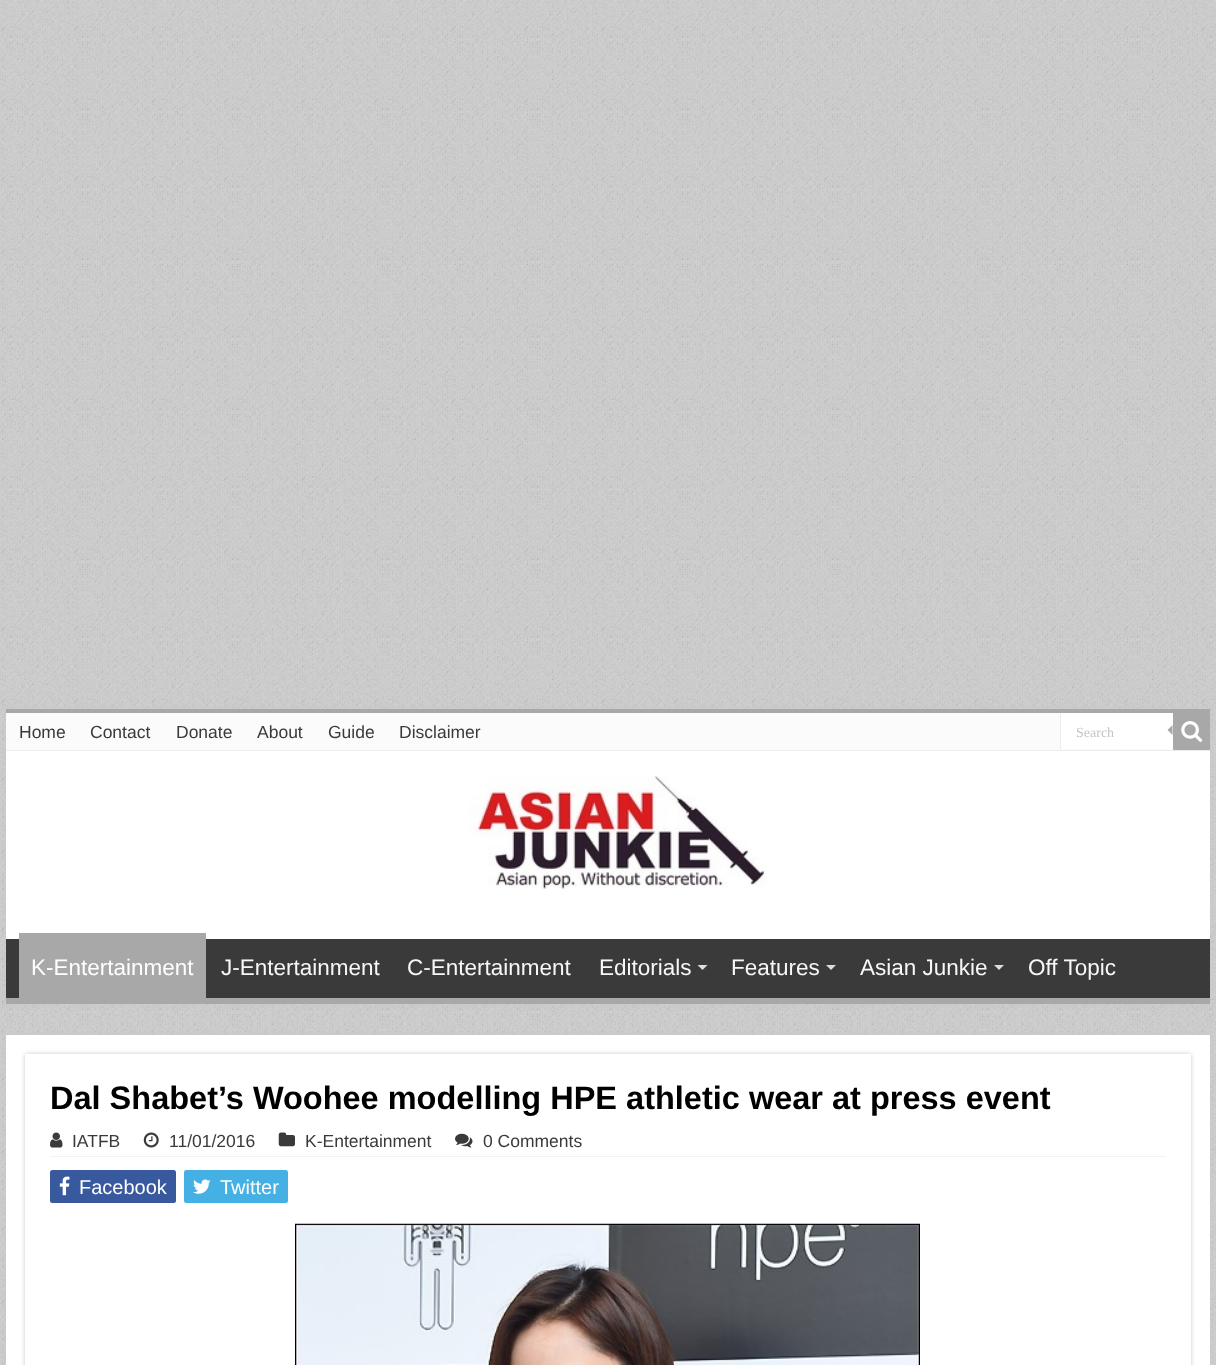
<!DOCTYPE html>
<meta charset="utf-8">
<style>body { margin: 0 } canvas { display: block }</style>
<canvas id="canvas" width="1216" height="1365"></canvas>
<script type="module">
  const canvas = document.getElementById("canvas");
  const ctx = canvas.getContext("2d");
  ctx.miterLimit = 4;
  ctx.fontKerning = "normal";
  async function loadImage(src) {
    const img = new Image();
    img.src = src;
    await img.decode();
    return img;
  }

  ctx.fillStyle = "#cacaca";
  ctx.fillRect(0, 0, 1216, 1365);
  ctx.drawImage(await loadImage("img1.png"), 0, 0, 1216, 1365);
  ctx.filter = "blur(2px)";
  ctx.beginPath();
  ctx.rect(6, 709, 1204, 295);
  ctx.fill();
  ctx.filter = "none";
  ctx.fillStyle = "#ffffff";
  ctx.fillRect(6, 751, 1204, 188);
  ctx.fillStyle = "#a8a8a8";
  ctx.fillRect(6, 709, 1204, 4);
  ctx.fillStyle = "#fbfbfb";
  ctx.fillRect(6, 713, 1167, 37);
  ctx.fillStyle = "#ececec";
  ctx.fillRect(6, 750, 1204, 1);
  ctx.font = "17.5px Liberation Sans";
  ctx.fillStyle = "#3a3a3a";
  ctx.fillText("Home", 19, 738);
  ctx.fillText("Contact", 90, 738);
  ctx.fillText("Donate", 176, 738);
  ctx.fillText("About", 257, 738);
  ctx.fillText("Guide", 328, 738);
  ctx.fillText("Disclaimer", 399, 738);
  ctx.fillStyle = "#ffffff";
  ctx.fillRect(1061, 713, 112, 36);
  ctx.fillStyle = "#ececec";
  ctx.fillRect(1060, 713, 1, 36);
  ctx.font = "14px Liberation Serif";
  ctx.fillStyle = "#c5c5c5";
  ctx.fillText("Search", 1076, 737);
  ctx.fillStyle = "#a8a8a8";
  ctx.fillRect(1173, 713, 37, 37);
  ctx.drawImage(await loadImage("img2.png"), 1181, 721, 22, 21);
  ctx.beginPath();
  ctx.moveTo(1172.5, 725);
  ctx.lineTo(1172.5, 735);
  ctx.lineTo(1167.5, 730);
  ctx.closePath();
  ctx.fill();
  ctx.drawImage(await loadImage("img3.png"), 468, 776, 299, 113);
  ctx.fillStyle = "#3a3a3a";
  ctx.fillRect(6, 939, 1204, 59);
  ctx.fillStyle = "#a8a8a8";
  ctx.fillRect(6, 998, 1204, 6);
  ctx.fillRect(19, 933, 187, 65);
  ctx.font = "22.5px Liberation Sans";
  ctx.fillStyle = "#ffffff";
  ctx.fillText("K-Entertainment", 31, 975);
  ctx.fillStyle = "#f7f7f7";
  ctx.fillText("J-Entertainment", 221, 975);
  ctx.fillText("C-Entertainment", 407, 975);
  ctx.fillText("Editorials", 599, 975);
  ctx.fillStyle = "#dddddd";
  ctx.beginPath();
  ctx.moveTo(697.5, 965);
  ctx.lineTo(707.5, 965);
  ctx.lineTo(702.5, 970);
  ctx.closePath();
  ctx.fill();
  ctx.fillStyle = "#f7f7f7";
  ctx.fillText("Features", 731, 975);
  ctx.fillStyle = "#dddddd";
  ctx.beginPath();
  ctx.moveTo(826, 965);
  ctx.lineTo(836, 965);
  ctx.lineTo(831, 970);
  ctx.closePath();
  ctx.fill();
  ctx.fillStyle = "#f7f7f7";
  ctx.fillText("Asian Junkie", 860, 975);
  ctx.fillStyle = "#dddddd";
  ctx.beginPath();
  ctx.moveTo(994, 965);
  ctx.lineTo(1004, 965);
  ctx.lineTo(999, 970);
  ctx.closePath();
  ctx.fill();
  ctx.fillStyle = "#f7f7f7";
  ctx.fillText("Off Topic", 1028, 975);
  ctx.fillStyle = "#cacaca";
  ctx.filter = "blur(2px)";
  ctx.beginPath();
  ctx.rect(6, 1035, 1204, 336);
  ctx.fill();
  ctx.filter = "none";
  ctx.fillStyle = "#ffffff";
  ctx.fillRect(6, 1035, 1204, 330);
  ctx.save();
  ctx.beginPath();
  ctx.moveTo(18, 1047);
  ctx.lineTo(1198, 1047);
  ctx.lineTo(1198, 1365);
  ctx.lineTo(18, 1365);
  ctx.closePath();
  ctx.moveTo(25, 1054);
  ctx.lineTo(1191, 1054);
  ctx.lineTo(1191, 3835);
  ctx.lineTo(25, 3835);
  ctx.closePath();
  ctx.clip("evenodd");
  ctx.fillStyle = "#cacaca";
  ctx.filter = "blur(2px)";
  ctx.beginPath();
  ctx.rect(25, 1054, 1166, 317);
  ctx.fill();
  ctx.filter = "none";
  ctx.restore();
  ctx.font = "bold 32.5px Liberation Sans";
  ctx.fillStyle = "#000000";
  ctx.fillText("Dal Shabet’s Woohee modelling HPE athletic wear at press event", 50, 1109);
  ctx.fillStyle = "#f2f2f2";
  ctx.fillRect(50, 1156, 1116, 1);
  ctx.drawImage(await loadImage("img4.png"), 50, 1132, 13, 16);
  ctx.font = "17.5px Liberation Sans";
  ctx.fillStyle = "#3a3a3a";
  ctx.fillText("IATFB", 72, 1147);
  ctx.drawImage(await loadImage("img5.png"), 143, 1132, 16, 16);
  ctx.fillText("11/01/2016", 169, 1147);
  ctx.drawImage(await loadImage("img6.png"), 278, 1132, 17, 15);
  ctx.fillText("K-Entertainment", 305, 1147);
  ctx.drawImage(await loadImage("img7.png"), 455, 1133, 18, 15);
  ctx.fillText("0 Comments", 483, 1147);
  ctx.fillStyle = "#39599f";
  ctx.beginPath();
  ctx.roundRect(50, 1170, 126, 33, 2.5);
  ctx.fill();
  ctx.drawImage(await loadImage("img8.png"), 59, 1176, 11, 20);
  ctx.font = "20px Liberation Sans";
  ctx.fillStyle = "#ffffff";
  ctx.fillText("Facebook", 79, 1194);
  ctx.fillStyle = "#45b0e3";
  ctx.beginPath();
  ctx.roundRect(184, 1170, 104, 33, 2.5);
  ctx.fill();
  ctx.drawImage(await loadImage("img9.png"), 193, 1179, 18, 15);
  ctx.fillStyle = "#ffffff";
  ctx.fillText("Twitter", 220, 1194);
  ctx.drawImage(await loadImage("img10.png"), 295, 1223, 625, 142);
</script>
